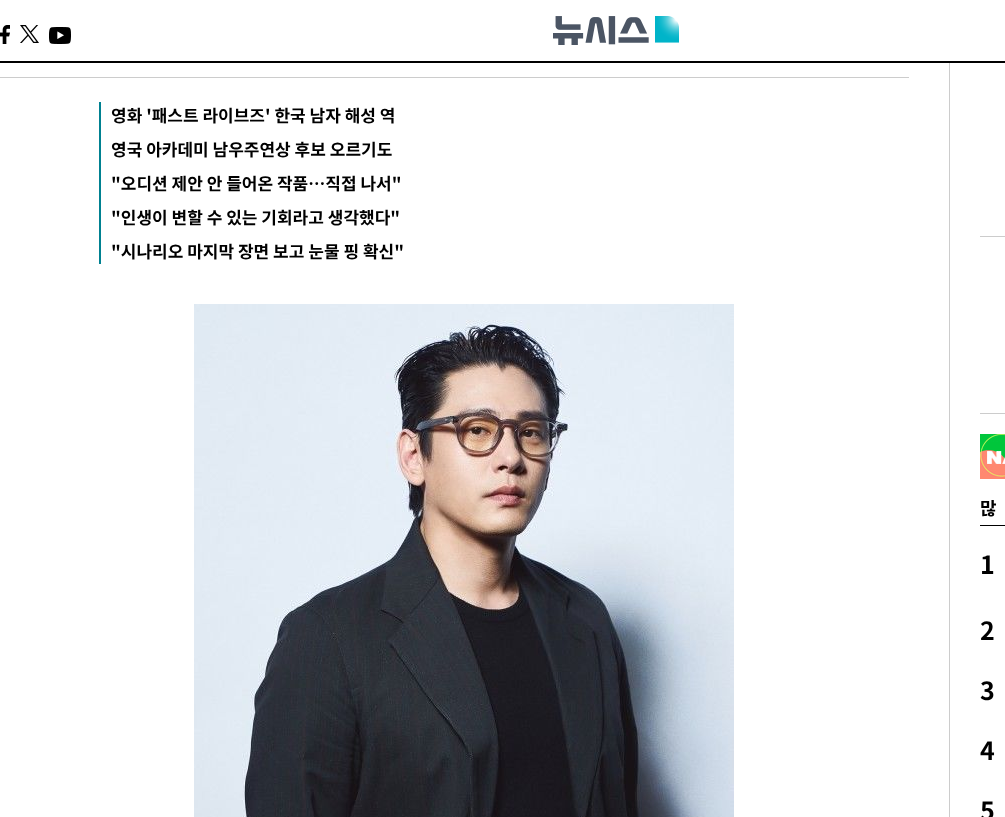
<!DOCTYPE html>
<meta charset="utf-8">
<style>body { margin: 0 } canvas { display: block }</style>
<canvas id="canvas" width="1005" height="817"></canvas>
<script type="module">
  const canvas = document.getElementById("canvas");
  const ctx = canvas.getContext("2d");
  ctx.miterLimit = 4;
  ctx.fontKerning = "normal";
  async function loadImage(src) {
    const img = new Image();
    img.src = src;
    await img.decode();
    return img;
  }

  ctx.fillStyle = "#ffffff";
  ctx.fillRect(0, 0, 1005, 817);
  ctx.fillStyle = "#000000";
  ctx.fillRect(0, 61, 1005, 2);
  ctx.drawImage(await loadImage("img1.png"), 0, 25, 10, 19);
  ctx.drawImage(await loadImage("img2.png"), 20, 25, 19, 18);
  ctx.drawImage(await loadImage("img3.png"), 49, 27, 22, 17);
  ctx.drawImage(await loadImage("img4.png"), 553, 16, 126, 29);
  ctx.fillStyle = "#cccccc";
  ctx.fillRect(949, 63, 1, 754);
  ctx.fillRect(0, 77, 909, 1);
  ctx.fillStyle = "#008191";
  ctx.fillRect(99, 102, 2, 162);
  ctx.font = "bold 17px Noto Sans KR";
  ctx.fillStyle = "#000000";
  ctx.fillText("영화 '패스트 라이브즈' 한국 남자 해성 역", 111, 122);
  ctx.fillText("영국 아카데미 남우주연상 후보 오르기도", 111, 156);
  ctx.fillText("\"오디션 제안 안 들어온 작품…직접 나서\"", 111, 190);
  ctx.fillText("\"인생이 변할 수 있는 기회라고 생각했다\"", 111, 224);
  ctx.fillText("\"시나리오 마지막 장면 보고 눈물 핑 확신\"", 111, 258);
  ctx.drawImage(await loadImage("img5.png"), 194, 304, 540, 513);
  ctx.fillStyle = "#cccccc";
  ctx.fillRect(980, 236, 25, 1);
  ctx.fillRect(980, 413, 25, 1);
  ctx.drawImage(await loadImage("img6.png"), 980, 434, 25, 45);
  ctx.fillStyle = "#000000";
  ctx.fillRect(980, 525, 25, 1);
  ctx.font = "bold 18px Noto Sans KR";
  ctx.fillText("많", 980, 515);
  ctx.font = "bold 25px Noto Sans KR";
  ctx.fillText("1", 980, 574);
  ctx.fillText("2", 980, 640);
  ctx.fillText("3", 980, 700);
  ctx.fillText("4", 980, 760);
  ctx.fillText("5", 980, 820);
</script>
